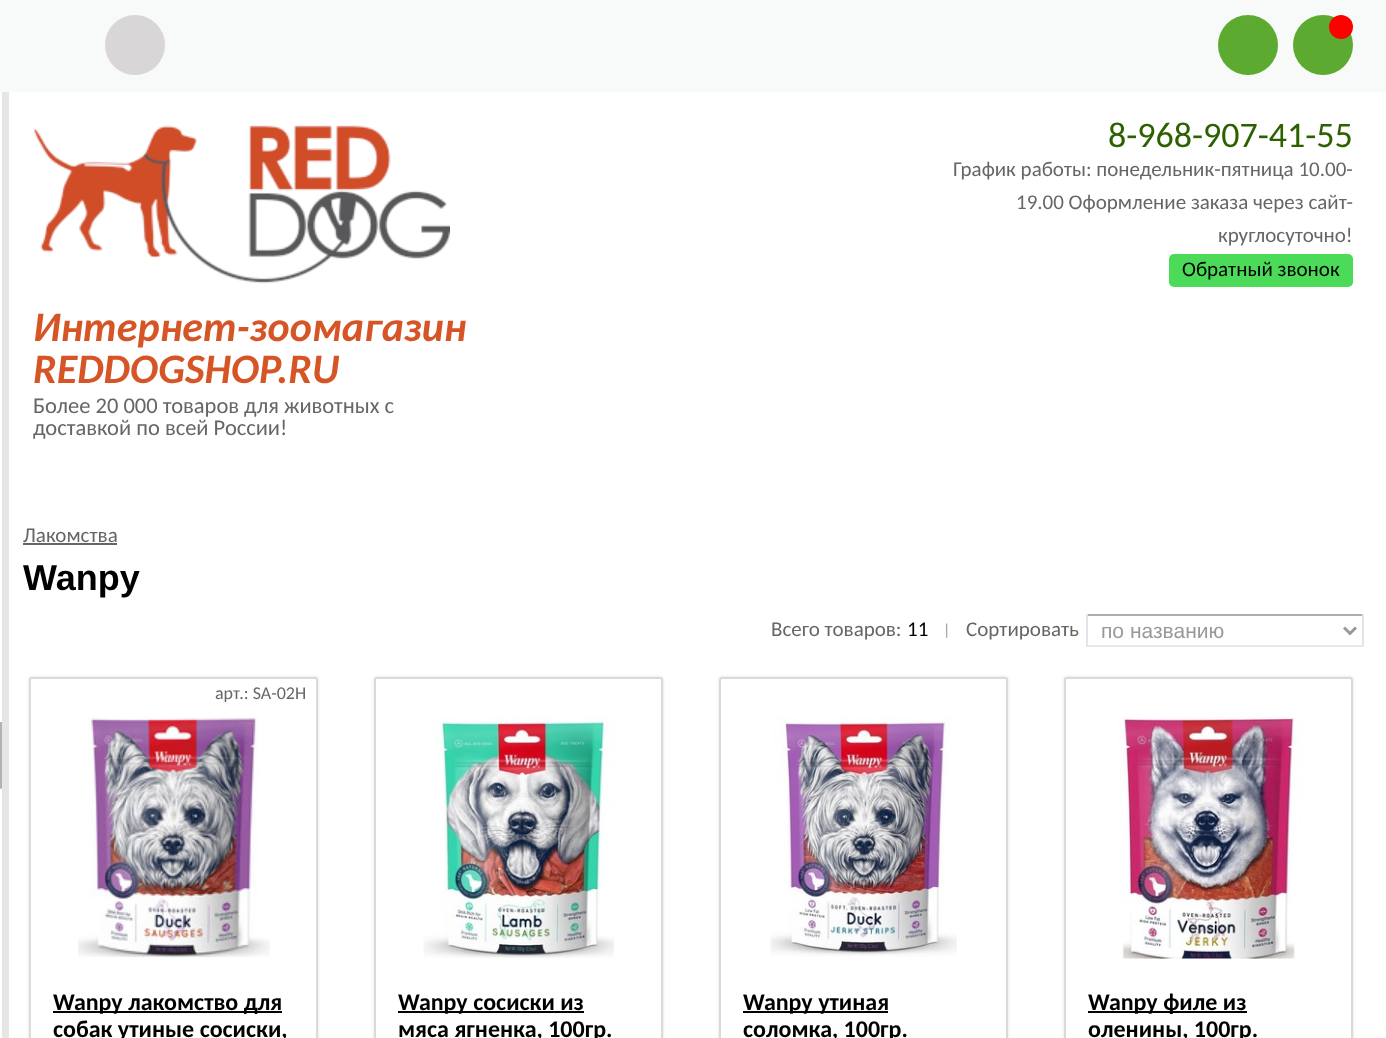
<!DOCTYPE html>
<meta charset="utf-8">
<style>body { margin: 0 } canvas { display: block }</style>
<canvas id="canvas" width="1386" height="1038"></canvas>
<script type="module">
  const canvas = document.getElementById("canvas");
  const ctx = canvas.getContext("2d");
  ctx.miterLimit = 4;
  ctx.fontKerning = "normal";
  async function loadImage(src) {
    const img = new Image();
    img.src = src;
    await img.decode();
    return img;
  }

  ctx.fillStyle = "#ffffff";
  ctx.fillRect(0, 0, 1386, 1038);
  ctx.fillStyle = "#e6e6e6";
  ctx.fillRect(2, 92, 7, 946);
  ctx.fillStyle = "#b3b3b3";
  ctx.fillRect(0, 722, 2, 67);
  ctx.fillStyle = "#cacaca";
  ctx.fillRect(0, 788, 2, 1);
  ctx.fillStyle = "#f8f9f9";
  ctx.fillRect(0, 0, 1386, 92);
  ctx.fillStyle = "#d8d6d6";
  ctx.beginPath();
  ctx.arc(135, 45, 30, 0, Math.PI * 2);
  ctx.fill();
  ctx.fillStyle = "#5cab30";
  ctx.beginPath();
  ctx.arc(1248, 45, 30, 0, Math.PI * 2);
  ctx.fill();
  ctx.beginPath();
  ctx.arc(1323, 45, 30, 0, Math.PI * 2);
  ctx.fill();
  ctx.fillStyle = "#ff0000";
  ctx.beginPath();
  ctx.arc(1341, 27, 12, 0, Math.PI * 2);
  ctx.fill();
  ctx.font = "36px Carlito";
  ctx.fillStyle = "#2d6100";
  ctx.fillText("8-968-907-41-55", 1108, 147);
  ctx.font = "21px Carlito";
  ctx.fillStyle = "#666666";
  ctx.fillText("График работы: понедельник-пятница 10.00-", 953, 176);
  ctx.fillText("19.00 Оформление заказа через сайт-", 1016, 209);
  ctx.fillText("круглосуточно!", 1218, 242);
  ctx.fillStyle = "#4bdb59";
  ctx.beginPath();
  ctx.roundRect(1169, 254, 184, 33, 5);
  ctx.fill();
  ctx.fillStyle = "#000000";
  ctx.fillText("Обратный звонок", 1182, 276);
  ctx.drawImage(await loadImage("img1.png"), 33, 125, 417, 159);
  ctx.font = "italic bold 42px Carlito";
  ctx.fillStyle = "#d65527";
  ctx.fillText("Интернет-зоомагазин", 33, 341);
  ctx.fillText("REDDOGSHOP.RU", 33, 383);
  ctx.font = "22.5px Carlito";
  ctx.fillStyle = "#666666";
  ctx.fillText("Более 20 000 товаров для животных с", 33, 413);
  ctx.fillText("доставкой по всей России!", 33, 435);
  ctx.font = "21px Carlito";
  ctx.fillText("Лакомства", 23, 542);
  ctx.fillRect(23, 543, 94, 2);
  ctx.font = "bold 36px Liberation Sans";
  ctx.fillStyle = "#000000";
  ctx.fillText("Wanpy", 23, 590);
  ctx.font = "21px Carlito";
  ctx.fillStyle = "#666666";
  ctx.fillText("Всего товаров:", 771, 636);
  ctx.fillStyle = "#000000";
  ctx.fillText("11", 907, 636);
  ctx.font = "16px Carlito";
  ctx.fillStyle = "#999999";
  ctx.fillText("|", 943, 635);
  ctx.font = "21px Carlito";
  ctx.fillStyle = "#666666";
  ctx.fillText("Сортировать", 966, 636);
  ctx.fillStyle = "#aaadb2";
  ctx.fillRect(1086, 614, 278, 2);
  ctx.fillStyle = "#e3e3eb";
  ctx.fillRect(1362, 614, 2, 33);
  ctx.fillStyle = "#e2e9ef";
  ctx.fillRect(1086, 645, 278, 2);
  ctx.fillStyle = "#e3e3eb";
  ctx.fillRect(1086, 614, 2, 33);
  ctx.beginPath();
  ctx.moveTo(1344, 627.5);
  ctx.lineTo(1350, 633.5);
  ctx.lineTo(1356, 627.5);
  ctx.strokeStyle = "#999999";
  ctx.lineWidth = 3;
  ctx.stroke();
  ctx.font = "21px Liberation Sans";
  ctx.fillStyle = "#999999";
  ctx.fillText("по названию", 1101, 638);
  ctx.fillStyle = "#dddddd";
  ctx.filter = "blur(1.5px)";
  ctx.beginPath();
  ctx.roundRect(29, 677, 289, 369, 3);
  ctx.fill();
  ctx.filter = "none";
  ctx.fillStyle = "#ffffff";
  ctx.beginPath();
  ctx.roundRect(30, 678, 287, 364, 2);
  ctx.fill();
  ctx.strokeStyle = "#dadada";
  ctx.lineWidth = 2;
  ctx.stroke();
  ctx.font = "18px Carlito";
  ctx.fillStyle = "#666666";
  ctx.fillText("арт.: SA-02H", 215, 699);
  ctx.fillStyle = "#000000";
  ctx.fillRect(53, 1011, 229, 2);
  ctx.font = "bold 24px Carlito";
  ctx.fillText("Wanpy лакомство для", 53, 1010);
  ctx.fillText("собак утиные сосиски,", 53, 1037);
  ctx.drawImage(await loadImage("img2.png"), 78, 717, 192, 241);
  ctx.fillStyle = "#dddddd";
  ctx.filter = "blur(1.5px)";
  ctx.beginPath();
  ctx.roundRect(374, 677, 289, 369, 3);
  ctx.fill();
  ctx.filter = "none";
  ctx.fillStyle = "#ffffff";
  ctx.beginPath();
  ctx.roundRect(375, 678, 287, 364, 2);
  ctx.fill();
  ctx.stroke();
  ctx.drawImage(await loadImage("img3.png"), 423, 717, 191, 241);
  ctx.fillStyle = "#000000";
  ctx.fillRect(398, 1011, 186, 2);
  ctx.fillText("Wanpy сосиски из", 398, 1010);
  ctx.fillText("мяса ягненка, 100гр.", 398, 1037);
  ctx.fillStyle = "#dddddd";
  ctx.filter = "blur(1.5px)";
  ctx.beginPath();
  ctx.roundRect(719, 677, 289, 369, 3);
  ctx.fill();
  ctx.filter = "none";
  ctx.fillStyle = "#ffffff";
  ctx.beginPath();
  ctx.roundRect(720, 678, 287, 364, 2);
  ctx.fill();
  ctx.stroke();
  ctx.drawImage(await loadImage("img4.png"), 770, 717, 187, 240);
  ctx.fillStyle = "#000000";
  ctx.fillRect(743, 1011, 145, 2);
  ctx.fillText("Wanpy утиная", 743, 1010);
  ctx.fillText("соломка, 100гр.", 743, 1037);
  ctx.fillStyle = "#dddddd";
  ctx.filter = "blur(1.5px)";
  ctx.beginPath();
  ctx.roundRect(1064, 677, 289, 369, 3);
  ctx.fill();
  ctx.filter = "none";
  ctx.fillStyle = "#ffffff";
  ctx.beginPath();
  ctx.roundRect(1065, 678, 287, 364, 2);
  ctx.fill();
  ctx.stroke();
  ctx.drawImage(await loadImage("img5.png"), 1118, 717, 185, 242);
  ctx.fillStyle = "#000000";
  ctx.fillRect(1088, 1011, 159, 2);
  ctx.fillText("Wanpy филе из", 1088, 1010);
  ctx.fillText("оленины, 100гр.", 1088, 1037);
</script>
